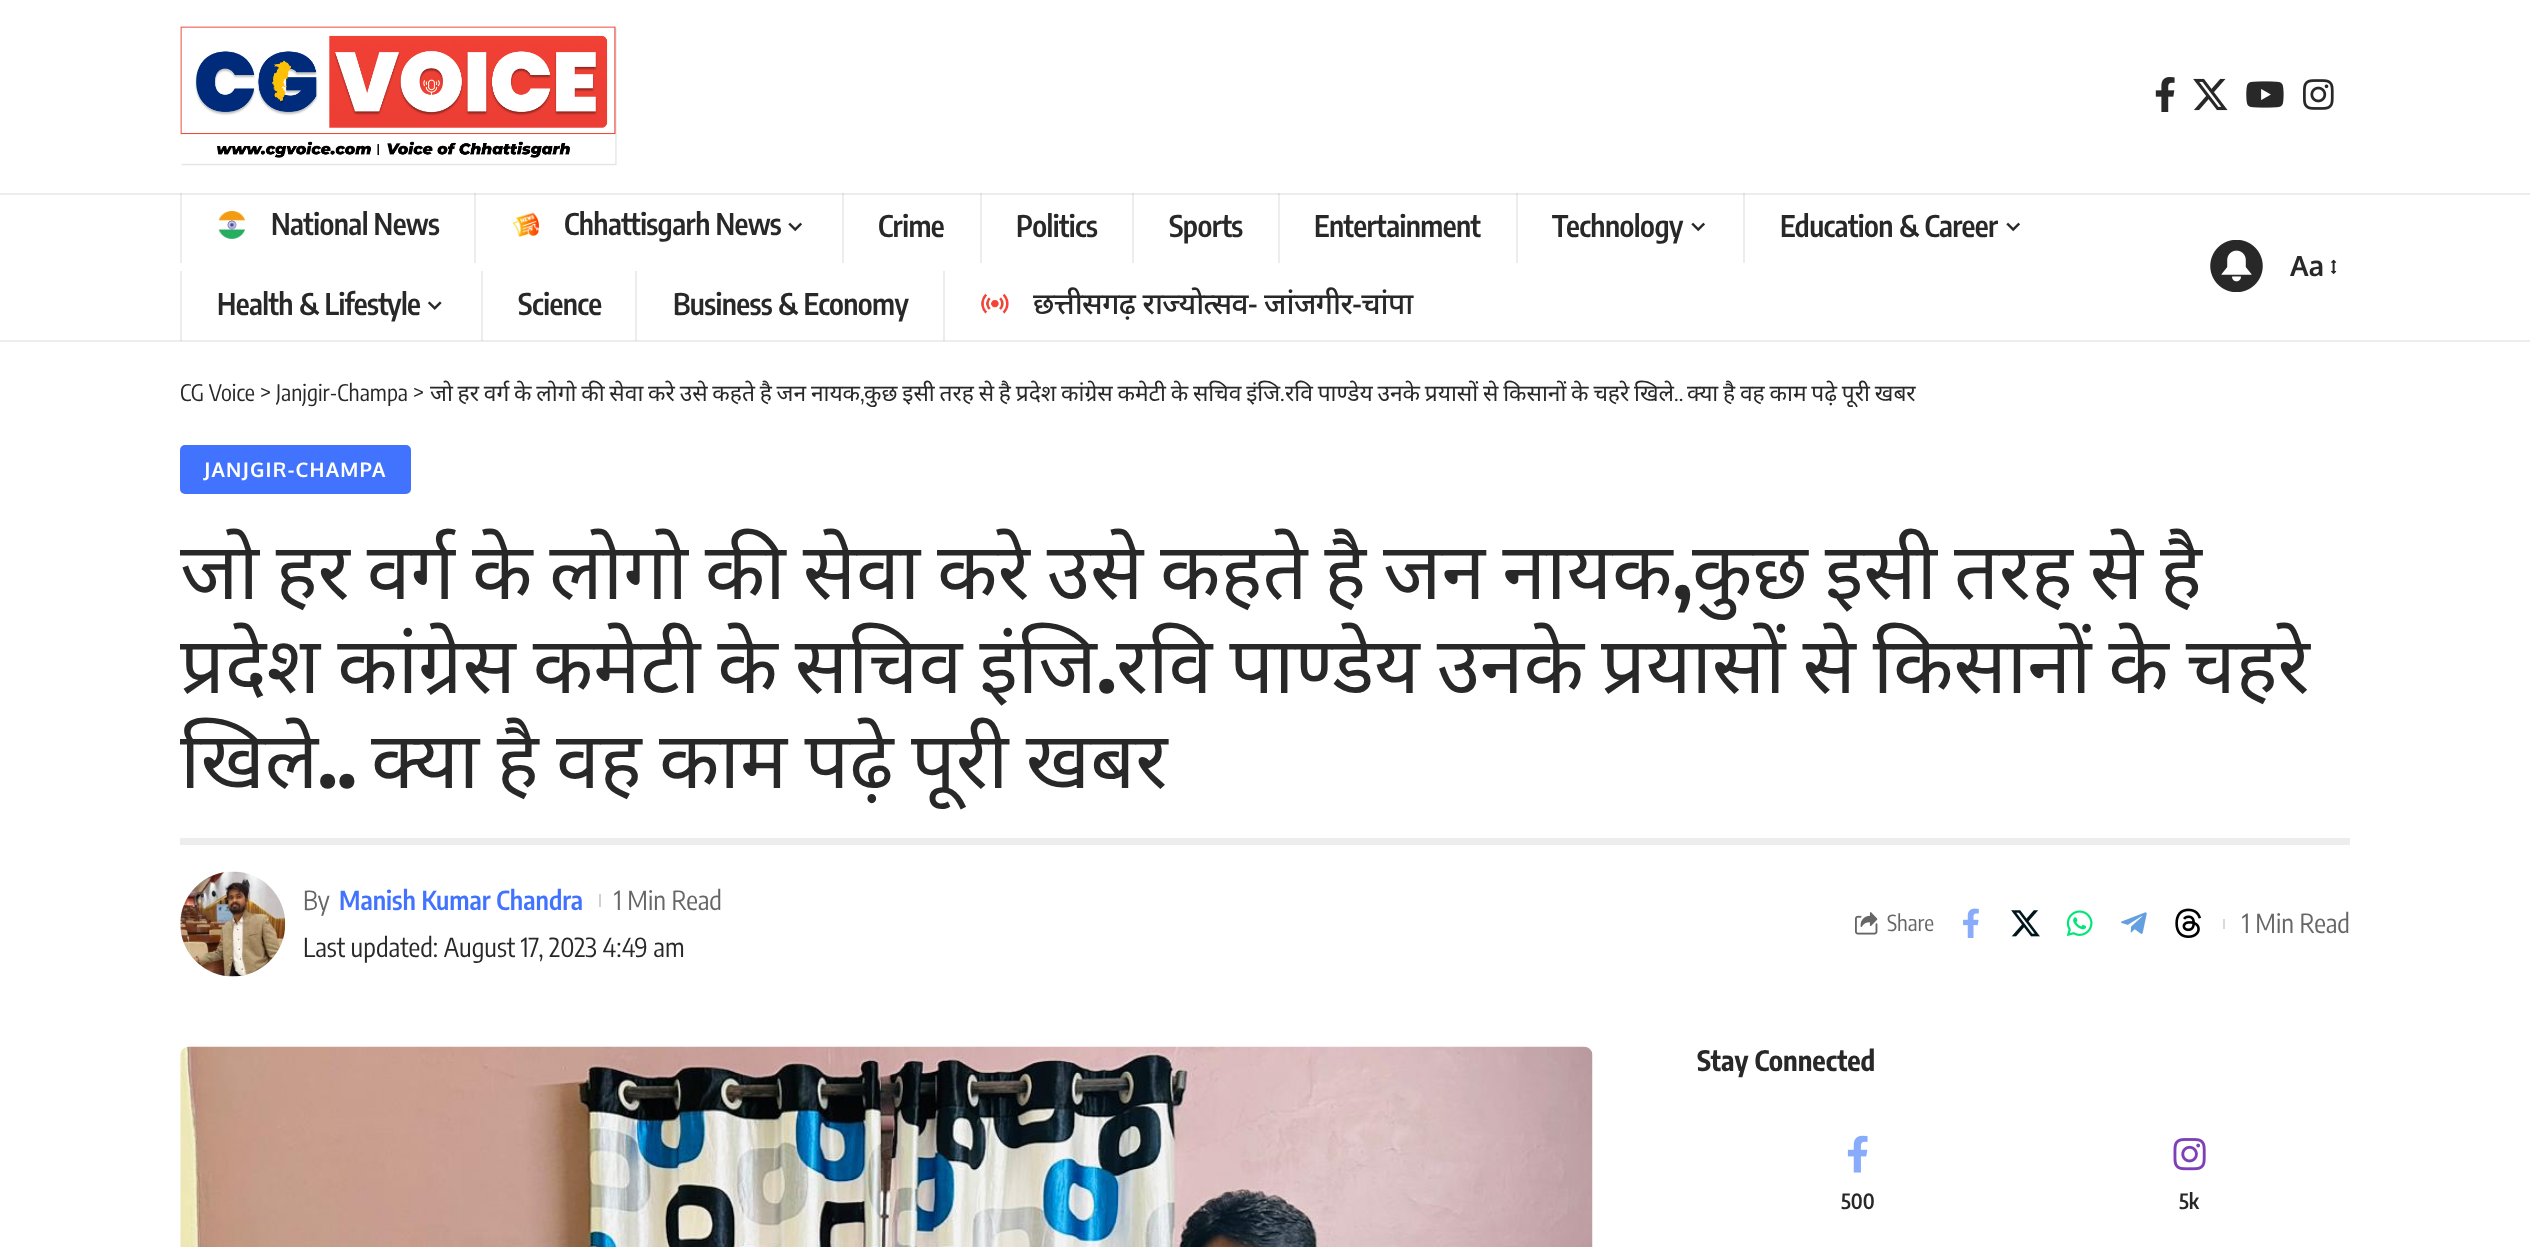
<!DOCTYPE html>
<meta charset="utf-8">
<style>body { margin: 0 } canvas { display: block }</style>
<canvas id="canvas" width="2530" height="1247"></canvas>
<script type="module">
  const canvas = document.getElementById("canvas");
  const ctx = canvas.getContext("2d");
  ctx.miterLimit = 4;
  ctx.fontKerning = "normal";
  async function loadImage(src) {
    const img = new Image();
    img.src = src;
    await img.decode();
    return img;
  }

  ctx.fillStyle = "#ffffff";
  ctx.fillRect(0, 0, 2530, 1247);
  ctx.fillStyle = "#ededed";
  ctx.fillRect(0, 340, 2530, 2);
  ctx.fillRect(1743, 193, 2, 70);
  ctx.fillRect(1516, 193, 2, 70);
  ctx.fillRect(1278, 193, 2, 70);
  ctx.fillRect(1132, 193, 2, 70);
  ctx.fillRect(980, 193, 2, 70);
  ctx.fillRect(842, 193, 2, 70);
  ctx.fillRect(474, 193, 2, 70);
  ctx.fillRect(180, 193, 2, 70);
  ctx.drawImage(await loadImage("img1.png"), 180, 26, 437, 140);
  ctx.drawImage(await loadImage("img2.png"), 2155, 77, 20, 35);
  ctx.drawImage(await loadImage("img3.png"), 2193, 78, 35, 33);
  ctx.drawImage(await loadImage("img4.png"), 2246, 81, 38, 27);
  ctx.drawImage(await loadImage("img5.png"), 2303, 79, 31, 31);
  ctx.fillRect(0, 193, 2530, 2);
  ctx.fillStyle = "#dedede";
  ctx.fillRect(1743, 193, 2, 2);
  ctx.fillRect(1516, 193, 2, 2);
  ctx.fillRect(1278, 193, 2, 2);
  ctx.fillRect(1132, 193, 2, 2);
  ctx.fillRect(980, 193, 2, 2);
  ctx.fillRect(842, 193, 2, 2);
  ctx.fillRect(474, 193, 2, 2);
  ctx.fillRect(180, 193, 2, 2);
  ctx.drawImage(await loadImage("img6.png"), 218, 211, 27, 28);
  ctx.letterSpacing = "-0.6px";
  ctx.font = "600 29.75px Encode Sans Condensed";
  ctx.fillStyle = "#282828";
  ctx.fillText("National News", 271, 235);
  ctx.drawImage(await loadImage("img7.png"), 512, 212, 27, 25);
  ctx.fillText("Chhattisgarh News", 564, 235);
  ctx.drawImage(await loadImage("img8.png"), 788, 222, 14, 10);
  ctx.fillText("Crime", 878, 237);
  ctx.fillText("Politics", 1016, 237);
  ctx.fillText("Sports", 1169, 237);
  ctx.fillText("Entertainment", 1314, 237);
  ctx.fillText("Technology", 1552, 237);
  ctx.drawImage(await loadImage("img8.png"), 1691, 222, 14, 10);
  ctx.fillText("Education & Career", 1780, 237);
  ctx.drawImage(await loadImage("img8.png"), 2006, 222, 14, 10);
  ctx.fillStyle = "#ededed";
  ctx.fillRect(180, 271, 2, 70);
  ctx.fillStyle = "#dedede";
  ctx.fillRect(180, 340, 2, 1);
  ctx.fillStyle = "#282828";
  ctx.fillText("Health & Lifestyle", 217, 315);
  ctx.drawImage(await loadImage("img9.png"), 427, 301, 15, 9);
  ctx.fillStyle = "#ededed";
  ctx.fillRect(481, 271, 2, 70);
  ctx.fillStyle = "#dedede";
  ctx.fillRect(481, 340, 2, 1);
  ctx.fillStyle = "#282828";
  ctx.fillText("Science", 518, 315);
  ctx.fillStyle = "#ededed";
  ctx.fillRect(635, 271, 2, 70);
  ctx.fillStyle = "#dedede";
  ctx.fillRect(635, 340, 2, 1);
  ctx.fillStyle = "#282828";
  ctx.fillText("Business & Economy", 673, 315);
  ctx.fillStyle = "#ededed";
  ctx.fillRect(943, 271, 2, 70);
  ctx.fillStyle = "#dedede";
  ctx.fillRect(943, 340, 2, 1);
  ctx.drawImage(await loadImage("img10.png"), 981, 293, 28, 21);
  ctx.font = "500 29.75px Noto Sans";
  ctx.fillStyle = "#282828";
  ctx.fillText("छत्तीसगढ़ राज्योत्सव- जांजगीर-चांपा", 1033, 314);
  ctx.drawImage(await loadImage("img11.png"), 2210, 240, 53, 52);
  ctx.letterSpacing = "0px";
  ctx.font = "bold 28px Oxygen";
  ctx.fillText("Aa", 2290, 276);
  ctx.drawImage(await loadImage("img12.png"), 2331, 259, 6, 15);
  ctx.font = "22.75px Encode Sans Condensed";
  ctx.fillText("CG Voice > Janjgir-Champa >", 180, 401);
  ctx.wordSpacing = "-1.1px";
  ctx.font = "22.75px Noto Sans";
  ctx.fillText("जो हर वर्ग के लोगो की सेवा करे उसे कहते है जन नायक", 430, 401);
  ctx.wordSpacing = "0px";
  ctx.font = "22.75px Encode Sans Condensed";
  ctx.fillText(",", 860, 401);
  ctx.wordSpacing = "-1.1px";
  ctx.font = "22.75px Noto Sans";
  ctx.fillText("कुछ इसी तरह से है प्रदेश कांग्रेस कमेटी के सचिव इंजि", 864, 401);
  ctx.fillText("रवि पाण्डेय उनके प्रयासों से किसानों के चहरे खिले", 1285, 401);
  ctx.fillText("क्या है वह काम पढ़े पूरी खबर", 1687, 401);
  ctx.wordSpacing = "0px";
  ctx.font = "22.75px Encode Sans Condensed";
  ctx.fillText(".", 1280, 401);
  ctx.fillText("..", 1674, 401);
  ctx.fillStyle = "#4173ff";
  ctx.beginPath();
  ctx.roundRect(180, 445, 231, 49, 5);
  ctx.fill();
  ctx.letterSpacing = "1.25px";
  ctx.font = "bold 20.1px Oxygen";
  ctx.fillStyle = "#ffffff";
  ctx.fillText("JANJGIR-CHAMPA", 204, 477);
  ctx.letterSpacing = "0px";
  ctx.wordSpacing = "-3.5px";
  ctx.font = "78.75px Noto Sans";
  ctx.fillStyle = "#282828";
  ctx.fillText("जो हर वर्ग के लोगो की सेवा करे उसे कहते है जन नायक", 180, 599);
  ctx.wordSpacing = "0px";
  ctx.font = "bold 78.75px Encode Sans Condensed";
  ctx.fillText(",", 1673, 599);
  ctx.wordSpacing = "-3.5px";
  ctx.font = "78.75px Noto Sans";
  ctx.fillText("कुछ इसी तरह से है", 1692, 599);
  ctx.fillText("प्रदेश कांग्रेस कमेटी के सचिव इंजि", 180, 693);
  ctx.wordSpacing = "0px";
  ctx.font = "bold 78.75px Encode Sans Condensed";
  ctx.fillText(".", 1097, 693);
  ctx.wordSpacing = "-3.5px";
  ctx.font = "78.75px Noto Sans";
  ctx.fillText("रवि पाण्डेय उनके प्रयासों से किसानों के चहरे", 1116, 693);
  ctx.wordSpacing = "0px";
  ctx.fillText("खिले", 180, 788);
  ctx.font = "bold 78.75px Encode Sans Condensed";
  ctx.fillText("..", 318, 788);
  ctx.wordSpacing = "-3px";
  ctx.font = "78.75px Noto Sans";
  ctx.fillText("क्या है वह काम पढ़े पूरी खबर", 371, 788);
  ctx.fillStyle = "#ededed";
  ctx.fillRect(180, 838, 2170, 7);
  ctx.drawImage(await loadImage("img13.png"), 180, 871, 106, 106);
  ctx.wordSpacing = "0px";
  ctx.font = "26.2px Encode Sans Condensed";
  ctx.fillStyle = "#666666";
  ctx.fillText("By", 303, 910);
  ctx.font = "600 26.2px Encode Sans Condensed";
  ctx.fillStyle = "#4173ff";
  ctx.fillText("Manish Kumar Chandra", 339, 910);
  ctx.fillStyle = "#d1d1d1";
  ctx.fillRect(599, 894, 2, 13);
  ctx.font = "26.2px Encode Sans Condensed";
  ctx.fillStyle = "#666666";
  ctx.fillText("1 Min Read", 614, 910);
  ctx.fillStyle = "#282828";
  ctx.fillText("Last updated: August 17, 2023 4:49 am", 303, 957);
  ctx.drawImage(await loadImage("img14.png"), 1855, 912, 23, 23);
  ctx.font = "22px Encode Sans Condensed";
  ctx.fillStyle = "#666666";
  ctx.fillText("Share", 1887, 931);
  ctx.drawImage(await loadImage("img15.png"), 1963, 908, 16, 30);
  ctx.drawImage(await loadImage("img16.png"), 2011, 910, 29, 27);
  ctx.drawImage(await loadImage("img17.png"), 2066, 910, 27, 27);
  ctx.drawImage(await loadImage("img18.png"), 2121, 912, 26, 22);
  ctx.drawImage(await loadImage("img19.png"), 2175, 908, 26, 30);
  ctx.fillStyle = "#d9d9d9";
  ctx.fillRect(2223, 919, 2, 10);
  ctx.font = "26.2px Encode Sans Condensed";
  ctx.fillStyle = "#666666";
  ctx.fillText("1 Min Read", 2242, 933);
  ctx.drawImage(await loadImage("img20.png"), 180, 1046, 1413, 201);
  ctx.font = "bold 28px Encode Sans Condensed";
  ctx.fillStyle = "#282828";
  ctx.fillText("Stay Connected", 1697, 1071);
  ctx.drawImage(await loadImage("img21.png"), 1847, 1135, 21, 38);
  ctx.font = "600 21px Encode Sans Condensed";
  ctx.fillText("500", 1841, 1209);
  ctx.drawImage(await loadImage("img22.png"), 2173, 1138, 33, 33);
  ctx.fillText("5k", 2179, 1209);
</script>
